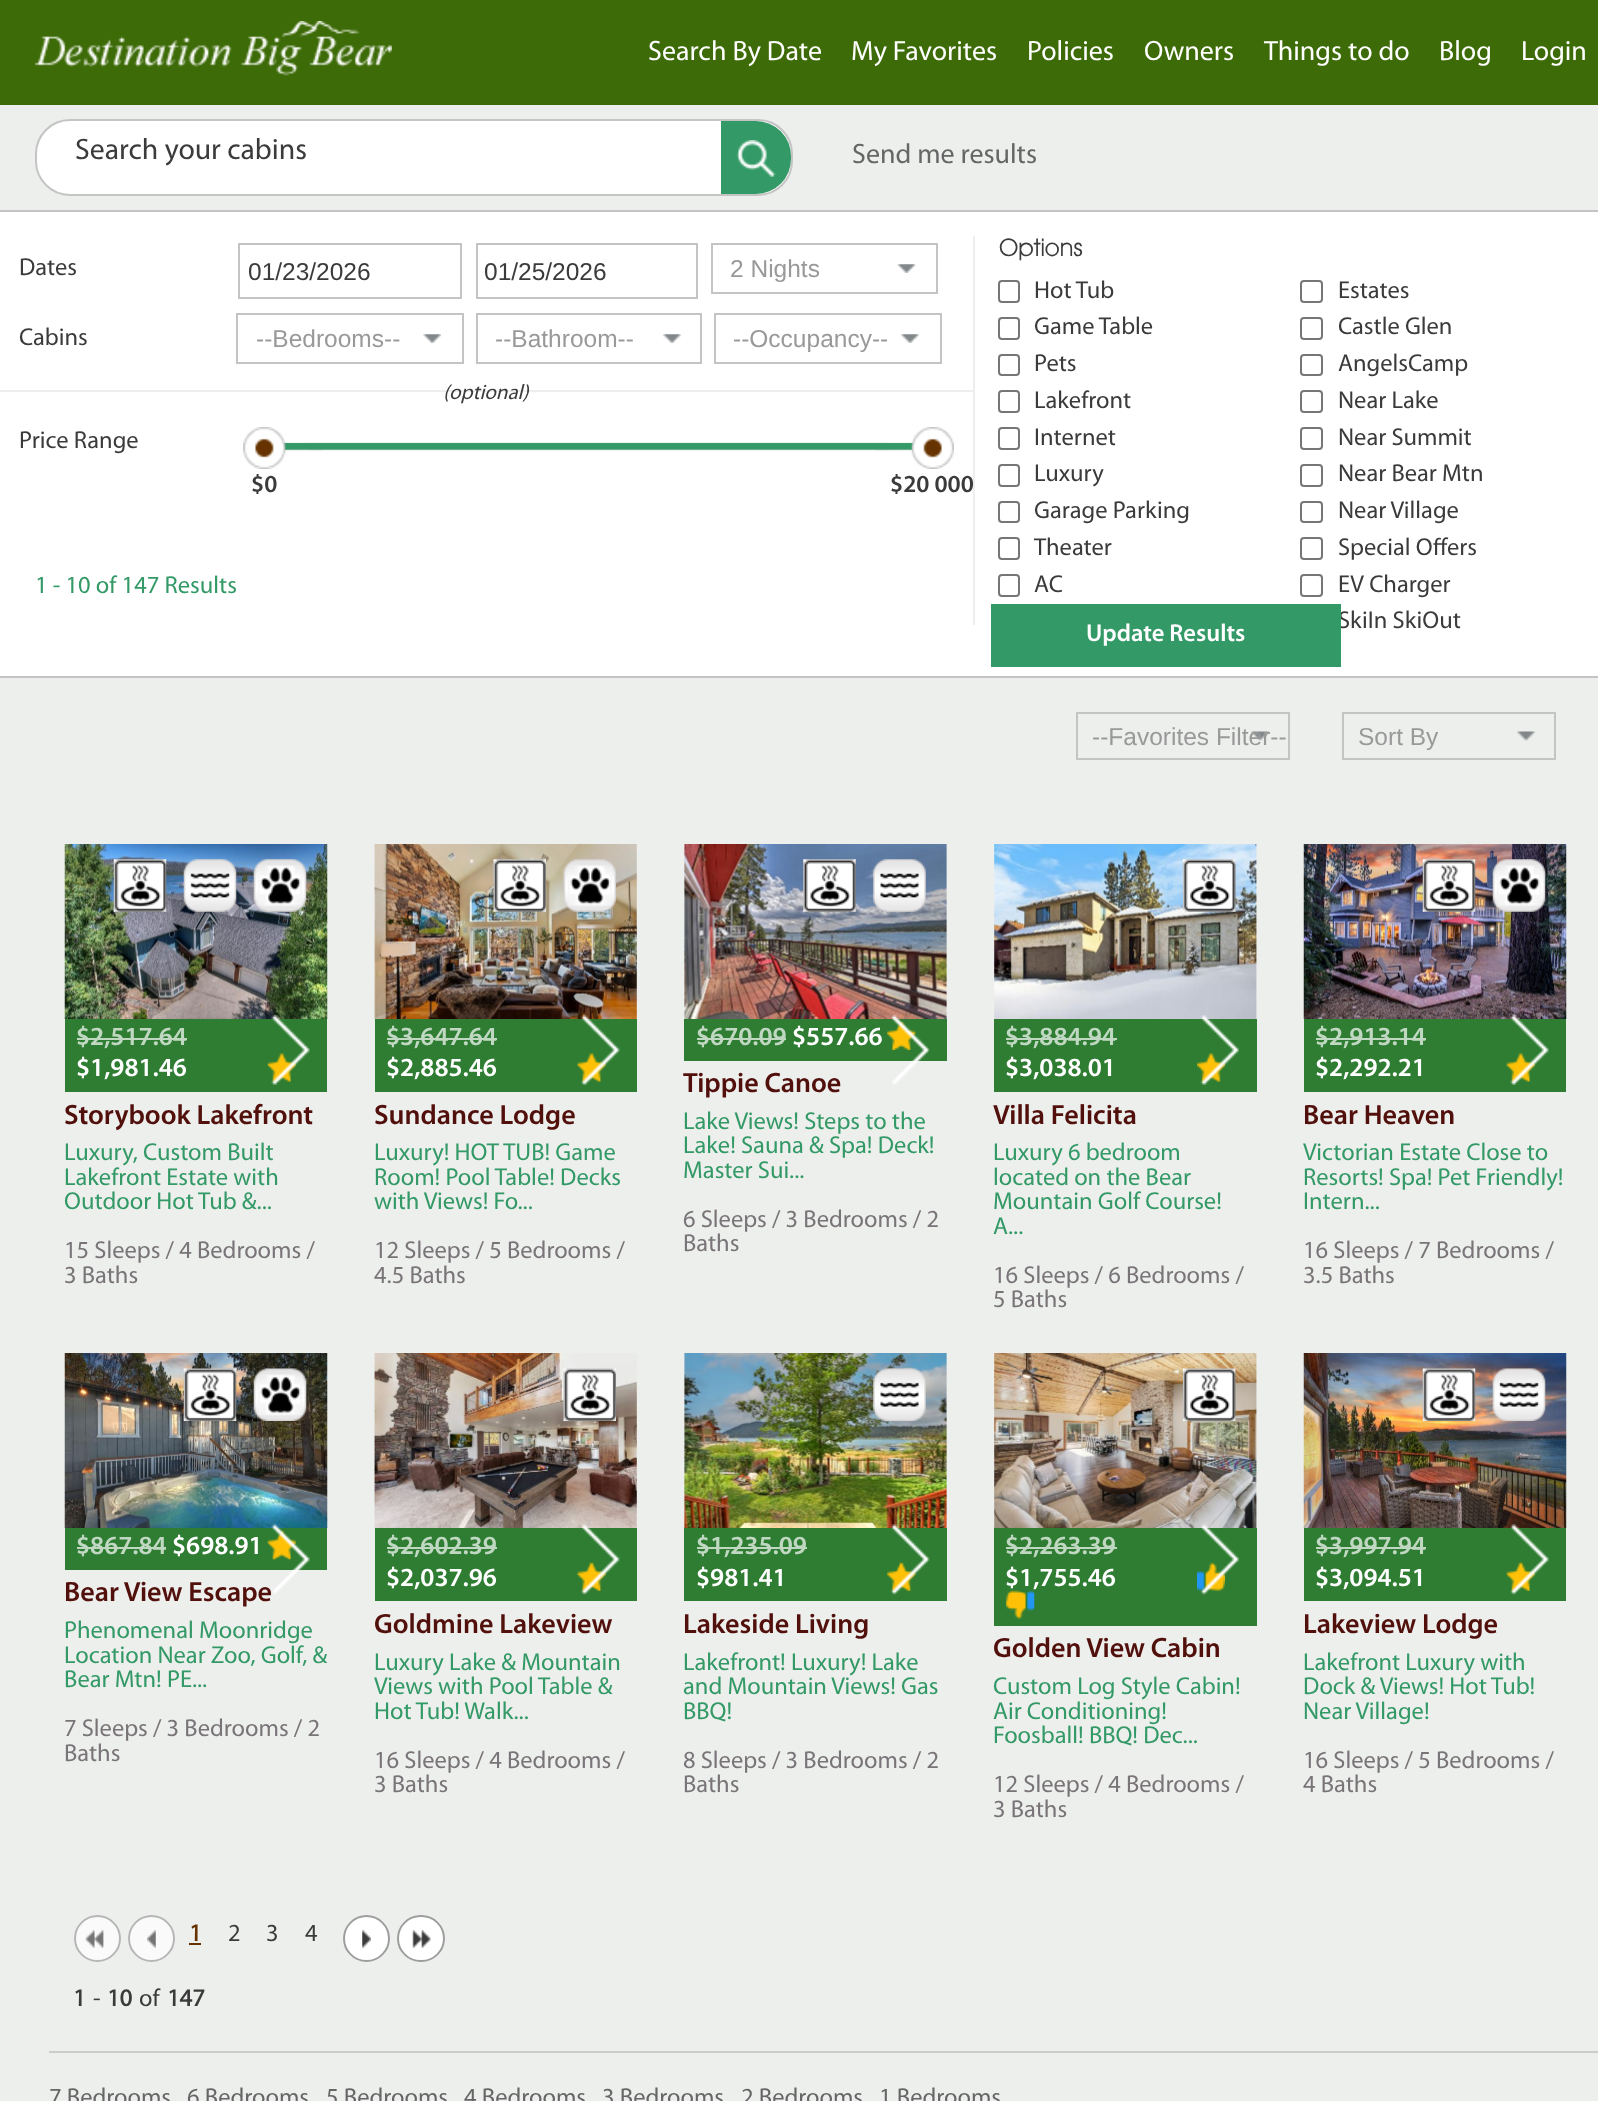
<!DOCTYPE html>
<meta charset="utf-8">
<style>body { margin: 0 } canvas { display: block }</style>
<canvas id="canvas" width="1598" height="2101"></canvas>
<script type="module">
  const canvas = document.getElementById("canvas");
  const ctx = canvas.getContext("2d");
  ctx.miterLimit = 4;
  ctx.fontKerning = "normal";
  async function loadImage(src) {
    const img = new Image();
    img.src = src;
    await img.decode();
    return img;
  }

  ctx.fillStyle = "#edefed";
  ctx.fillRect(0, 0, 1598, 2101);
  ctx.fillStyle = "#3d6b08";
  ctx.fillRect(0, 0, 1598, 105);
  ctx.drawImage(await loadImage("img1.png"), 35, 21, 357, 55);
  ctx.font = "28px Myriad";
  ctx.fillStyle = "#ffffff";
  ctx.fillText("Search By Date", 648, 60);
  ctx.fillText("My Favorites", 851, 60);
  ctx.fillText("Policies", 1027, 60);
  ctx.fillText("Owners", 1144, 60);
  ctx.fillText("Things to do", 1264, 60);
  ctx.fillText("Blog", 1439, 60);
  ctx.fillText("Login", 1521, 60);
  ctx.beginPath();
  ctx.roundRect(36, 120, 756, 75, 34);
  ctx.fill();
  ctx.strokeStyle = "#c4c4c4";
  ctx.lineWidth = 2;
  ctx.stroke();
  ctx.font = "29.75px Myriad";
  ctx.fillStyle = "#3b3b3b";
  ctx.fillText("Search your cabins", 75, 159);
  ctx.fillStyle = "#339966";
  ctx.beginPath();
  ctx.roundRect(721, 121, 70, 73, [0, 35, 35, 0]);
  ctx.fill();
  ctx.drawImage(await loadImage("img2.png"), 736, 140, 40, 37);
  ctx.font = "28px Myriad";
  ctx.fillStyle = "#666666";
  ctx.fillText("Send me results", 852, 163);
  ctx.fillStyle = "#ffffff";
  ctx.fillRect(0, 212, 1598, 464);
  ctx.fillStyle = "#c4c4c4";
  ctx.fillRect(0, 210, 1598, 2);
  ctx.fillRect(0, 676, 1598, 2);
  ctx.fillStyle = "#edefef";
  ctx.fillRect(0, 390, 973, 2);
  ctx.font = "24.5px Myriad";
  ctx.fillStyle = "#3b3b3b";
  ctx.fillText("Cabins", 19, 345);
  ctx.drawImage(await loadImage("img3.png"), 423, 334, 18, 9);
  ctx.strokeRect(237, 314, 226, 49);
  ctx.font = "24.5px Liberation Sans";
  ctx.fillStyle = "#999999";
  ctx.fillText("--Bedrooms--", 256, 347);
  ctx.drawImage(await loadImage("img4.png"), 663, 334, 18, 9);
  ctx.strokeRect(477, 314, 224, 49);
  ctx.fillText("--Bathroom--", 495, 347);
  ctx.drawImage(await loadImage("img4.png"), 901, 334, 18, 9);
  ctx.strokeRect(715, 314, 226, 49);
  ctx.fillText("--Occupancy--", 733, 347);
  ctx.font = "italic 21px Myriad";
  ctx.fillStyle = "#3b3b3b";
  ctx.fillText("(optional)", 443, 399);
  ctx.font = "24.5px Myriad";
  ctx.fillText("Price Range", 19, 448);
  ctx.drawImage(await loadImage("img8.png"), 243, 443, 79, 8);
  ctx.drawImage(await loadImage("img9.png"), 308, 442, 581, 9);
  ctx.drawImage(await loadImage("img10.png"), 875, 443, 79, 8);
  ctx.drawImage(await loadImage("img6.png"), 283, 442, 631, 9);
  ctx.drawImage(await loadImage("img5.png"), 243, 427, 43, 42);
  ctx.drawImage(await loadImage("img7.png"), 911, 427, 43, 42);
  ctx.font = "600 24.5px Myriad";
  ctx.fillText("$0", 251, 492);
  ctx.fillText("$20 000", 890, 492);
  ctx.font = "24.5px Myriad";
  ctx.fillStyle = "#339966";
  ctx.fillText("1 - 10 of 147 Results", 35, 593);
  ctx.font = "24.5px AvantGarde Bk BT";
  ctx.fillStyle = "#3b3b3b";
  ctx.fillText("Options", 999, 256);
  ctx.beginPath();
  ctx.roundRect(999, 281, 20, 21, 3);
  ctx.strokeStyle = "#767676";
  ctx.stroke();
  ctx.font = "24.5px Myriad";
  ctx.fillText("Hot Tub", 1034, 298);
  ctx.beginPath();
  ctx.roundRect(999, 318, 20, 21, 3);
  ctx.stroke();
  ctx.fillText("Game Table", 1034, 334);
  ctx.beginPath();
  ctx.roundRect(999, 355, 20, 20, 3);
  ctx.stroke();
  ctx.fillText("Pets", 1034, 371);
  ctx.beginPath();
  ctx.roundRect(999, 391, 20, 21, 3);
  ctx.stroke();
  ctx.fillText("Lakefront", 1034, 408);
  ctx.beginPath();
  ctx.roundRect(999, 428, 20, 21, 3);
  ctx.stroke();
  ctx.fillText("Internet", 1034, 445);
  ctx.beginPath();
  ctx.roundRect(999, 465, 20, 21, 3);
  ctx.stroke();
  ctx.fillText("Luxury", 1034, 481);
  ctx.beginPath();
  ctx.roundRect(999, 502, 20, 20, 3);
  ctx.stroke();
  ctx.fillText("Garage Parking", 1034, 518);
  ctx.beginPath();
  ctx.roundRect(999, 538, 20, 21, 3);
  ctx.stroke();
  ctx.fillText("Theater", 1034, 555);
  ctx.beginPath();
  ctx.roundRect(999, 575, 20, 21, 3);
  ctx.stroke();
  ctx.fillText("AC", 1034, 592);
  ctx.beginPath();
  ctx.roundRect(1301, 281, 21, 21, 3);
  ctx.stroke();
  ctx.fillText("Estates", 1338, 298);
  ctx.beginPath();
  ctx.roundRect(1301, 318, 21, 21, 3);
  ctx.stroke();
  ctx.fillText("Castle Glen", 1338, 334);
  ctx.beginPath();
  ctx.roundRect(1301, 355, 21, 20, 3);
  ctx.stroke();
  ctx.fillText("AngelsCamp", 1338, 371);
  ctx.beginPath();
  ctx.roundRect(1301, 391, 21, 21, 3);
  ctx.stroke();
  ctx.fillText("Near Lake", 1338, 408);
  ctx.beginPath();
  ctx.roundRect(1301, 428, 21, 21, 3);
  ctx.stroke();
  ctx.fillText("Near Summit", 1338, 445);
  ctx.beginPath();
  ctx.roundRect(1301, 465, 21, 21, 3);
  ctx.stroke();
  ctx.fillText("Near Bear Mtn", 1338, 481);
  ctx.beginPath();
  ctx.roundRect(1301, 502, 21, 20, 3);
  ctx.stroke();
  ctx.fillText("Near Village", 1338, 518);
  ctx.beginPath();
  ctx.roundRect(1301, 538, 21, 21, 3);
  ctx.stroke();
  ctx.fillText("Special Offers", 1338, 555);
  ctx.beginPath();
  ctx.roundRect(1301, 575, 21, 21, 3);
  ctx.stroke();
  ctx.fillText("EV Charger", 1338, 592);
  ctx.fillText("SkiIn SkiOut", 1338, 628);
  ctx.fillStyle = "#339966";
  ctx.fillRect(991, 604, 350, 63);
  ctx.font = "600 24.5px Myriad";
  ctx.fillStyle = "#ffffff";
  ctx.fillText("Update Results", 1086, 641);
  ctx.fillStyle = "#edefef";
  ctx.fillRect(973, 236, 2, 389);
  ctx.font = "24.5px Myriad";
  ctx.fillStyle = "#3b3b3b";
  ctx.fillText("Dates", 19, 275);
  ctx.strokeStyle = "#c4c4c4";
  ctx.strokeRect(239, 244, 222, 54);
  ctx.font = "24.5px Liberation Sans";
  ctx.fillText("01/23/2026", 248, 280);
  ctx.strokeRect(477, 244, 220, 54);
  ctx.fillText("01/25/2026", 484, 280);
  ctx.drawImage(await loadImage("img11.png"), 897, 264, 19, 9);
  ctx.strokeRect(712, 244, 225, 49);
  ctx.fillStyle = "#999999";
  ctx.fillText("2 Nights", 730, 277);
  ctx.drawImage(await loadImage("img12.png"), 1251, 731, 18, 10);
  ctx.strokeRect(1077, 713, 212, 46);
  ctx.fillText("--Favorites Filter--", 1092, 745);
  ctx.drawImage(await loadImage("img13.png"), 1517, 731, 18, 10);
  ctx.strokeRect(1343, 713, 212, 46);
  ctx.fillText("Sort By", 1358, 745);
  ctx.drawImage(await loadImage("img14.png"), 64, 844, 264, 175);
  ctx.fillStyle = "#2e7d32";
  ctx.fillRect(65, 1019, 262, 73);
  ctx.drawImage(await loadImage("img19.png"), 267, 1053, 29, 29);
  ctx.drawImage(await loadImage("img15.png"), 271, 1015, 39, 70);
  ctx.drawImage(await loadImage("img16.png"), 113, 859, 54, 53);
  ctx.drawImage(await loadImage("img17.png"), 183, 859, 54, 53);
  ctx.drawImage(await loadImage("img18.png"), 253, 859, 54, 53);
  ctx.font = "600 26.25px Myriad";
  ctx.fillStyle = "#c0d8c2";
  ctx.fillText("$2,517.64", 76, 1045);
  ctx.fillRect(77, 1038, 110, 2);
  ctx.fillStyle = "#ffffff";
  ctx.fillText("$1,981.46", 76, 1076);
  ctx.font = "600 28px Myriad";
  ctx.fillStyle = "#51100c";
  ctx.fillText("Storybook Lakefront", 64, 1124);
  ctx.font = "24.5px Myriad";
  ctx.fillStyle = "#339966";
  ctx.fillText("Luxury, Custom Built", 64, 1160);
  ctx.fillText("Lakefront Estate with", 64, 1185);
  ctx.fillText("Outdoor Hot Tub &...", 64, 1209);
  ctx.fillStyle = "#797478";
  ctx.fillText("15 Sleeps / 4 Bedrooms /", 64, 1258);
  ctx.fillText("3 Baths", 64, 1283);
  ctx.drawImage(await loadImage("img20.png"), 374, 844, 263, 175);
  ctx.fillStyle = "#2e7d32";
  ctx.fillRect(375, 1019, 262, 73);
  ctx.drawImage(await loadImage("img24.png"), 577, 1053, 29, 29);
  ctx.drawImage(await loadImage("img21.png"), 581, 1015, 39, 70);
  ctx.drawImage(await loadImage("img22.png"), 493, 859, 53, 53);
  ctx.drawImage(await loadImage("img23.png"), 563, 859, 53, 53);
  ctx.font = "600 26.25px Myriad";
  ctx.fillStyle = "#c0d8c2";
  ctx.fillText("$3,647.64", 386, 1045);
  ctx.fillRect(387, 1038, 110, 2);
  ctx.fillStyle = "#ffffff";
  ctx.fillText("$2,885.46", 386, 1076);
  ctx.font = "600 28px Myriad";
  ctx.fillStyle = "#51100c";
  ctx.fillText("Sundance Lodge", 374, 1124);
  ctx.font = "24.5px Myriad";
  ctx.fillStyle = "#339966";
  ctx.fillText("Luxury! HOT TUB! Game", 374, 1160);
  ctx.fillText("Room! Pool Table! Decks", 374, 1185);
  ctx.fillText("with Views! Fo...", 374, 1209);
  ctx.fillStyle = "#797478";
  ctx.fillText("12 Sleeps / 5 Bedrooms /", 374, 1258);
  ctx.fillText("4.5 Baths", 374, 1283);
  ctx.drawImage(await loadImage("img25.png"), 684, 844, 263, 175);
  ctx.fillStyle = "#2e7d32";
  ctx.fillRect(684, 1019, 263, 42);
  ctx.drawImage(await loadImage("img29.png"), 887, 1022, 29, 28);
  ctx.drawImage(await loadImage("img26.png"), 890, 1015, 40, 70);
  ctx.drawImage(await loadImage("img27.png"), 803, 859, 53, 53);
  ctx.drawImage(await loadImage("img28.png"), 873, 859, 53, 53);
  ctx.font = "600 26.25px Myriad";
  ctx.fillStyle = "#c0d8c2";
  ctx.fillText("$670.09", 696, 1045);
  ctx.fillRect(697, 1038, 89, 2);
  ctx.fillStyle = "#ffffff";
  ctx.fillText("$557.66", 792, 1045);
  ctx.font = "600 28px Myriad";
  ctx.fillStyle = "#51100c";
  ctx.fillText("Tippie Canoe", 683, 1092);
  ctx.font = "24.5px Myriad";
  ctx.fillStyle = "#339966";
  ctx.fillText("Lake Views! Steps to the", 683, 1129);
  ctx.fillText("Lake! Sauna & Spa! Deck!", 683, 1153);
  ctx.fillText("Master Sui...", 683, 1178);
  ctx.fillStyle = "#797478";
  ctx.fillText("6 Sleeps / 3 Bedrooms / 2", 683, 1227);
  ctx.fillText("Baths", 683, 1251);
  ctx.drawImage(await loadImage("img30.png"), 994, 844, 263, 175);
  ctx.fillStyle = "#2e7d32";
  ctx.fillRect(994, 1019, 263, 73);
  ctx.drawImage(await loadImage("img33.png"), 1197, 1053, 28, 29);
  ctx.drawImage(await loadImage("img31.png"), 1200, 1015, 39, 70);
  ctx.drawImage(await loadImage("img32.png"), 1183, 859, 53, 53);
  ctx.font = "600 26.25px Myriad";
  ctx.fillStyle = "#c0d8c2";
  ctx.fillText("$3,884.94", 1005, 1045);
  ctx.fillRect(1006, 1038, 111, 2);
  ctx.fillStyle = "#ffffff";
  ctx.fillText("$3,038.01", 1005, 1076);
  ctx.font = "600 28px Myriad";
  ctx.fillStyle = "#51100c";
  ctx.fillText("Villa Felicita", 993, 1124);
  ctx.font = "24.5px Myriad";
  ctx.fillStyle = "#339966";
  ctx.fillText("Luxury 6 bedroom", 993, 1160);
  ctx.fillText("located on the Bear", 993, 1185);
  ctx.fillText("Mountain Golf Course!", 993, 1209);
  ctx.fillText("A...", 993, 1234);
  ctx.fillStyle = "#797478";
  ctx.fillText("16 Sleeps / 6 Bedrooms /", 993, 1283);
  ctx.fillText("5 Baths", 993, 1307);
  ctx.drawImage(await loadImage("img34.png"), 1303, 844, 264, 175);
  ctx.fillStyle = "#2e7d32";
  ctx.fillRect(1304, 1019, 262, 73);
  ctx.drawImage(await loadImage("img19.png"), 1506, 1053, 29, 29);
  ctx.drawImage(await loadImage("img35.png"), 1510, 1015, 39, 70);
  ctx.drawImage(await loadImage("img36.png"), 1422, 859, 54, 53);
  ctx.drawImage(await loadImage("img37.png"), 1492, 859, 54, 53);
  ctx.font = "600 26.25px Myriad";
  ctx.fillStyle = "#c0d8c2";
  ctx.fillText("$2,913.14", 1315, 1045);
  ctx.fillRect(1316, 1038, 110, 2);
  ctx.fillStyle = "#ffffff";
  ctx.fillText("$2,292.21", 1315, 1076);
  ctx.font = "600 28px Myriad";
  ctx.fillStyle = "#51100c";
  ctx.fillText("Bear Heaven", 1303, 1124);
  ctx.font = "24.5px Myriad";
  ctx.fillStyle = "#339966";
  ctx.fillText("Victorian Estate Close to", 1303, 1160);
  ctx.fillText("Resorts! Spa! Pet Friendly!", 1303, 1185);
  ctx.fillText("Intern...", 1303, 1209);
  ctx.fillStyle = "#797478";
  ctx.fillText("16 Sleeps / 7 Bedrooms /", 1303, 1258);
  ctx.fillText("3.5 Baths", 1303, 1283);
  ctx.drawImage(await loadImage("img38.png"), 64, 1353, 264, 175);
  ctx.fillStyle = "#2e7d32";
  ctx.fillRect(65, 1528, 262, 42);
  ctx.drawImage(await loadImage("img42.png"), 267, 1531, 29, 29);
  ctx.font = "600 28px Myriad";
  ctx.fillStyle = "#51100c";
  ctx.fillText("Bear View Escape", 64, 1601);
  ctx.drawImage(await loadImage("img39.png"), 271, 1524, 39, 70);
  ctx.drawImage(await loadImage("img40.png"), 183, 1368, 54, 53);
  ctx.drawImage(await loadImage("img41.png"), 253, 1368, 54, 53);
  ctx.font = "600 26.25px Myriad";
  ctx.fillStyle = "#c0d8c2";
  ctx.fillText("$867.84", 76, 1554);
  ctx.fillRect(77, 1547, 89, 2);
  ctx.fillStyle = "#ffffff";
  ctx.fillText("$698.91", 172, 1554);
  ctx.font = "24.5px Myriad";
  ctx.fillStyle = "#339966";
  ctx.fillText("Phenomenal Moonridge", 64, 1638);
  ctx.fillText("Location Near Zoo, Golf, &", 64, 1663);
  ctx.fillText("Bear Mtn! PE...", 64, 1687);
  ctx.fillStyle = "#797478";
  ctx.fillText("7 Sleeps / 3 Bedrooms / 2", 64, 1736);
  ctx.fillText("Baths", 64, 1761);
  ctx.drawImage(await loadImage("img43.png"), 374, 1353, 263, 175);
  ctx.fillStyle = "#2e7d32";
  ctx.fillRect(375, 1528, 262, 73);
  ctx.drawImage(await loadImage("img46.png"), 577, 1562, 29, 29);
  ctx.drawImage(await loadImage("img44.png"), 581, 1524, 39, 71);
  ctx.drawImage(await loadImage("img45.png"), 563, 1368, 53, 53);
  ctx.font = "600 26.25px Myriad";
  ctx.fillStyle = "#c0d8c2";
  ctx.fillText("$2,602.39", 386, 1554);
  ctx.fillRect(387, 1547, 110, 2);
  ctx.fillStyle = "#ffffff";
  ctx.fillText("$2,037.96", 386, 1586);
  ctx.font = "600 28px Myriad";
  ctx.fillStyle = "#51100c";
  ctx.fillText("Goldmine Lakeview", 374, 1633);
  ctx.font = "24.5px Myriad";
  ctx.fillStyle = "#339966";
  ctx.fillText("Luxury Lake & Mountain", 374, 1670);
  ctx.fillText("Views with Pool Table &", 374, 1694);
  ctx.fillText("Hot Tub! Walk...", 374, 1719);
  ctx.fillStyle = "#797478";
  ctx.fillText("16 Sleeps / 4 Bedrooms /", 374, 1768);
  ctx.fillText("3 Baths", 374, 1792);
  ctx.drawImage(await loadImage("img47.png"), 684, 1353, 263, 175);
  ctx.fillStyle = "#2e7d32";
  ctx.fillRect(684, 1528, 263, 73);
  ctx.drawImage(await loadImage("img50.png"), 887, 1562, 29, 29);
  ctx.drawImage(await loadImage("img48.png"), 890, 1524, 40, 71);
  ctx.drawImage(await loadImage("img49.png"), 873, 1368, 53, 53);
  ctx.font = "600 26.25px Myriad";
  ctx.fillStyle = "#c0d8c2";
  ctx.fillText("$1,235.09", 696, 1554);
  ctx.fillRect(697, 1547, 110, 2);
  ctx.fillStyle = "#ffffff";
  ctx.fillText("$981.41", 696, 1586);
  ctx.font = "600 28px Myriad";
  ctx.fillStyle = "#51100c";
  ctx.fillText("Lakeside Living", 683, 1633);
  ctx.font = "24.5px Myriad";
  ctx.fillStyle = "#339966";
  ctx.fillText("Lakefront! Luxury! Lake", 683, 1670);
  ctx.fillText("and Mountain Views! Gas", 683, 1694);
  ctx.fillText("BBQ!", 683, 1719);
  ctx.fillStyle = "#797478";
  ctx.fillText("8 Sleeps / 3 Bedrooms / 2", 683, 1768);
  ctx.fillText("Baths", 683, 1792);
  ctx.drawImage(await loadImage("img51.png"), 994, 1353, 263, 175);
  ctx.fillStyle = "#2e7d32";
  ctx.fillRect(994, 1528, 263, 98);
  ctx.drawImage(await loadImage("img54.png"), 1197, 1562, 28, 29);
  ctx.drawImage(await loadImage("img52.png"), 1200, 1524, 39, 71);
  ctx.drawImage(await loadImage("img53.png"), 1183, 1368, 53, 53);
  ctx.font = "600 26.25px Myriad";
  ctx.fillStyle = "#c0d8c2";
  ctx.fillText("$2,263.39", 1005, 1554);
  ctx.fillRect(1006, 1547, 111, 2);
  ctx.fillStyle = "#ffffff";
  ctx.fillText("$1,755.46", 1005, 1586);
  ctx.drawImage(await loadImage("img55.png"), 1006, 1590, 29, 29);
  ctx.font = "600 28px Myriad";
  ctx.fillStyle = "#51100c";
  ctx.fillText("Golden View Cabin", 993, 1657);
  ctx.font = "24.5px Myriad";
  ctx.fillStyle = "#339966";
  ctx.fillText("Custom Log Style Cabin!", 993, 1694);
  ctx.fillText("Air Conditioning!", 993, 1719);
  ctx.fillText("Foosball! BBQ! Dec...", 993, 1743);
  ctx.fillStyle = "#797478";
  ctx.fillText("12 Sleeps / 4 Bedrooms /", 993, 1792);
  ctx.fillText("3 Baths", 993, 1817);
  ctx.drawImage(await loadImage("img56.png"), 1303, 1353, 264, 175);
  ctx.fillStyle = "#2e7d32";
  ctx.fillRect(1304, 1528, 262, 73);
  ctx.drawImage(await loadImage("img60.png"), 1506, 1562, 29, 29);
  ctx.drawImage(await loadImage("img57.png"), 1510, 1524, 39, 71);
  ctx.drawImage(await loadImage("img58.png"), 1422, 1368, 54, 53);
  ctx.drawImage(await loadImage("img59.png"), 1492, 1368, 54, 53);
  ctx.font = "600 26.25px Myriad";
  ctx.fillStyle = "#c0d8c2";
  ctx.fillText("$3,997.94", 1315, 1554);
  ctx.fillRect(1316, 1547, 110, 2);
  ctx.fillStyle = "#ffffff";
  ctx.fillText("$3,094.51", 1315, 1586);
  ctx.font = "600 28px Myriad";
  ctx.fillStyle = "#51100c";
  ctx.fillText("Lakeview Lodge", 1303, 1633);
  ctx.font = "24.5px Myriad";
  ctx.fillStyle = "#339966";
  ctx.fillText("Lakefront Luxury with", 1303, 1670);
  ctx.fillText("Dock & Views! Hot Tub!", 1303, 1694);
  ctx.fillText("Near Village!", 1303, 1719);
  ctx.fillStyle = "#797478";
  ctx.fillText("16 Sleeps / 5 Bedrooms /", 1303, 1768);
  ctx.fillText("4 Baths", 1303, 1792);
  ctx.fillStyle = "#fafafa";
  ctx.beginPath();
  ctx.arc(97.5, 1938.5, 23.5, 0, Math.PI * 2);
  ctx.fill();
  ctx.drawImage(await loadImage("img61.png"), 85, 1930, 19, 18);
  ctx.beginPath();
  ctx.arc(97.5, 1938.5, 22.5, 0, Math.PI * 2);
  ctx.strokeStyle = "#b5b6b5";
  ctx.stroke();
  ctx.beginPath();
  ctx.arc(151.5, 1938.5, 23.5, 0, Math.PI * 2);
  ctx.fill();
  ctx.drawImage(await loadImage("img62.png"), 147, 1930, 9, 18);
  ctx.beginPath();
  ctx.arc(151.5, 1938.5, 22.5, 0, Math.PI * 2);
  ctx.stroke();
  ctx.font = "bold 24.5px Myriad";
  ctx.fillStyle = "#663300";
  ctx.fillText("1", 189, 1941);
  ctx.fillRect(189, 1943, 12, 2);
  ctx.font = "24.5px Myriad";
  ctx.fillStyle = "#3b3b3b";
  ctx.fillText("2", 228, 1941);
  ctx.fillText("3", 266, 1941);
  ctx.fillText("4", 305, 1941);
  ctx.fillStyle = "#ffffff";
  ctx.beginPath();
  ctx.arc(366.5, 1938.5, 23.5, 0, Math.PI * 2);
  ctx.fill();
  ctx.drawImage(await loadImage("img63.png"), 362, 1930, 9, 18);
  ctx.beginPath();
  ctx.arc(366.5, 1938.5, 22.5, 0, Math.PI * 2);
  ctx.strokeStyle = "#9d9d9d";
  ctx.stroke();
  ctx.beginPath();
  ctx.roundRect(397, 1915, 48, 47, 23.5);
  ctx.fill();
  ctx.drawImage(await loadImage("img64.png"), 412, 1930, 19, 18);
  ctx.beginPath();
  ctx.roundRect(398, 1916, 46, 45, 22.5);
  ctx.stroke();
  ctx.font = "bold 24.5px Myriad";
  ctx.fillStyle = "#3b3b3b";
  ctx.fillText("1", 73, 2006);
  ctx.font = "24.5px Myriad";
  ctx.fillText("-", 93, 2006);
  ctx.font = "bold 24.5px Myriad";
  ctx.fillText("10", 107, 2006);
  ctx.font = "24.5px Myriad";
  ctx.fillText("of", 139, 2006);
  ctx.font = "bold 24.5px Myriad";
  ctx.fillText("147", 167, 2006);
  ctx.fillStyle = "#cccccc";
  ctx.fillRect(49, 2051, 1549, 2);
  ctx.font = "24.5px Myriad";
  ctx.fillStyle = "#666666";
  ctx.fillText("7 Bedrooms", 49, 2105);
  ctx.fillText("6 Bedrooms", 187, 2105);
  ctx.fillText("5 Bedrooms", 326, 2105);
  ctx.fillText("4 Bedrooms", 464, 2105);
  ctx.fillText("3 Bedrooms", 602, 2105);
  ctx.fillText("2 Bedrooms", 741, 2105);
  ctx.fillText("1 Bedrooms", 879, 2105);
</script>
